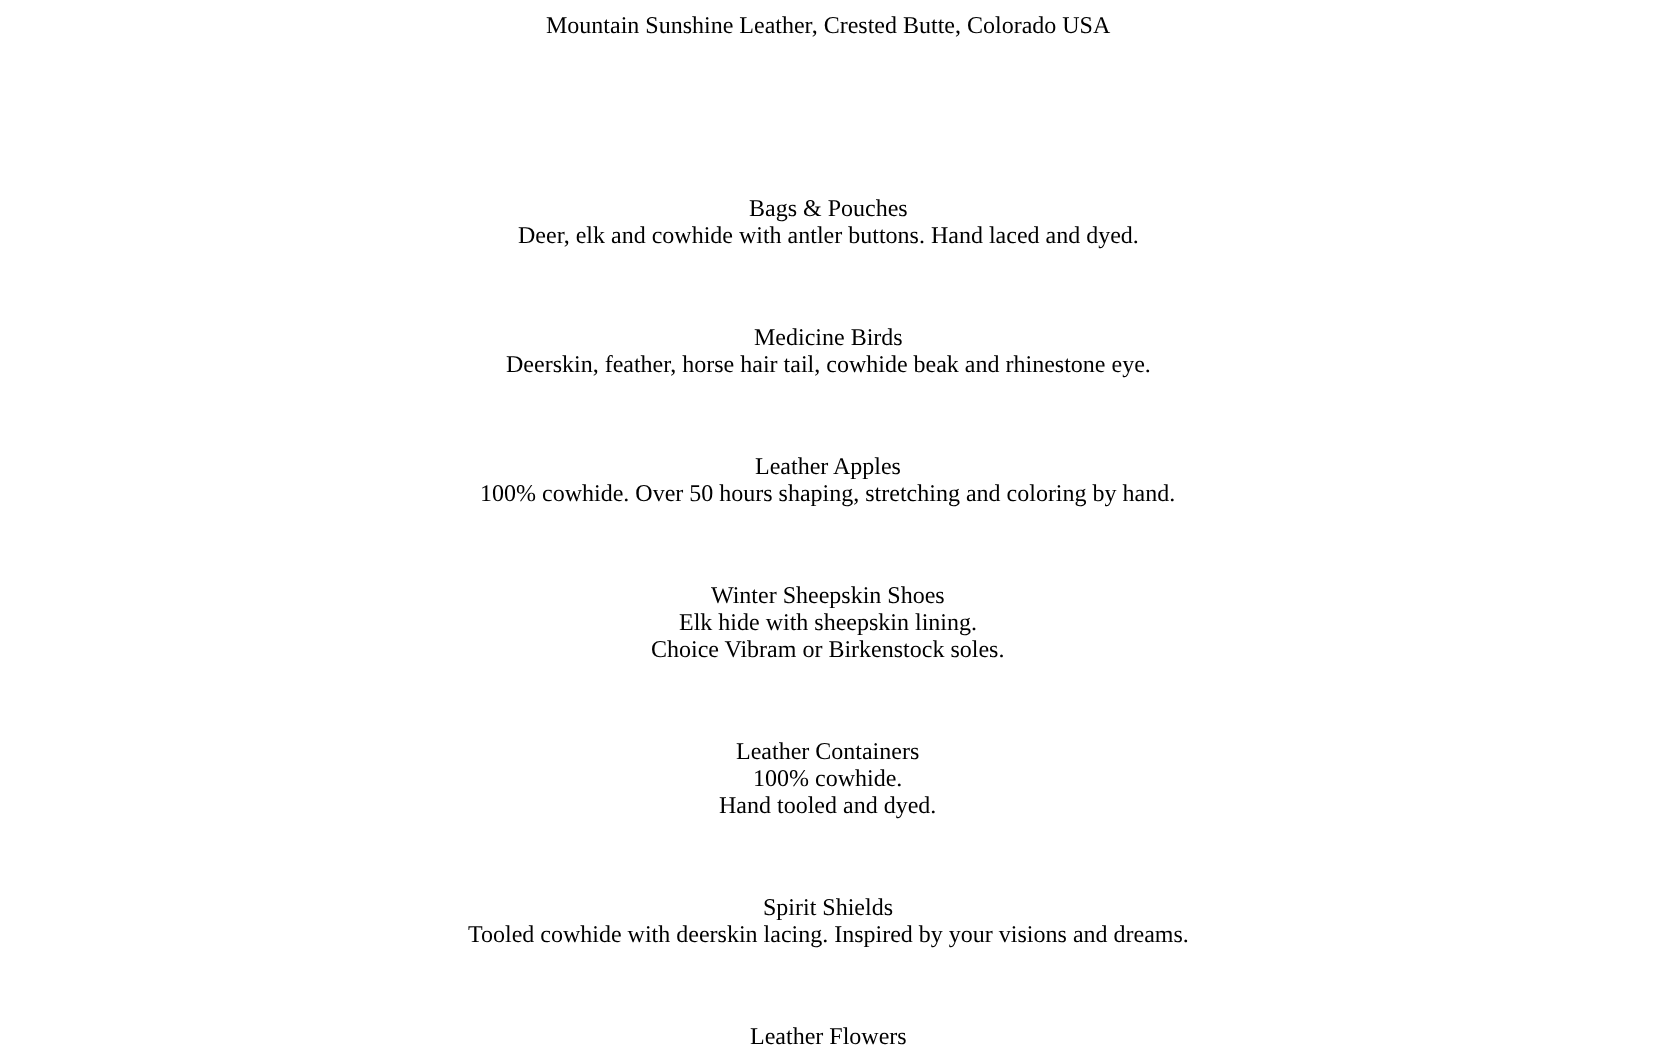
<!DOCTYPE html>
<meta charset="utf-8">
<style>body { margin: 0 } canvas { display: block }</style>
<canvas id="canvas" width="1655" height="1062"></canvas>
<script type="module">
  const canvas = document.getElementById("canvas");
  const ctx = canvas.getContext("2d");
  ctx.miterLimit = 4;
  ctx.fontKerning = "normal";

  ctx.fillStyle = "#ffffff";
  ctx.fillRect(0, 0, 1655, 1062);
  ctx.font = "24px Liberation Serif";
  ctx.fillStyle = "#000000";
  ctx.fillText("Mountain Sunshine Leather, Crested Butte, Colorado USA", 546, 33);
  ctx.fillText("Bags & Pouches", 749, 216);
  ctx.fillText("Deer, elk and cowhide with antler buttons. Hand laced and dyed.", 518, 243);
  ctx.fillText("Medicine Birds", 754, 345);
  ctx.fillText("Deerskin, feather, horse hair tail, cowhide beak and rhinestone eye.", 506, 372);
  ctx.fillText("Leather Apples", 755, 474);
  ctx.fillText("100% cowhide. Over 50 hours shaping, stretching and coloring by hand.", 480, 501);
  ctx.fillText("Winter Sheepskin Shoes", 711, 603);
  ctx.fillText("Elk hide with sheepskin lining.", 679, 630);
  ctx.fillText("Choice Vibram or Birkenstock soles.", 651, 657);
  ctx.fillText("Leather Containers", 736, 759);
  ctx.fillText("100% cowhide.", 753, 786);
  ctx.fillText("Hand tooled and dyed.", 719, 813);
  ctx.fillText("Spirit Shields", 763, 915);
  ctx.fillText("Tooled cowhide with deerskin lacing. Inspired by your visions and dreams.", 468, 942);
  ctx.fillText("Leather Flowers", 750, 1044);
</script>
